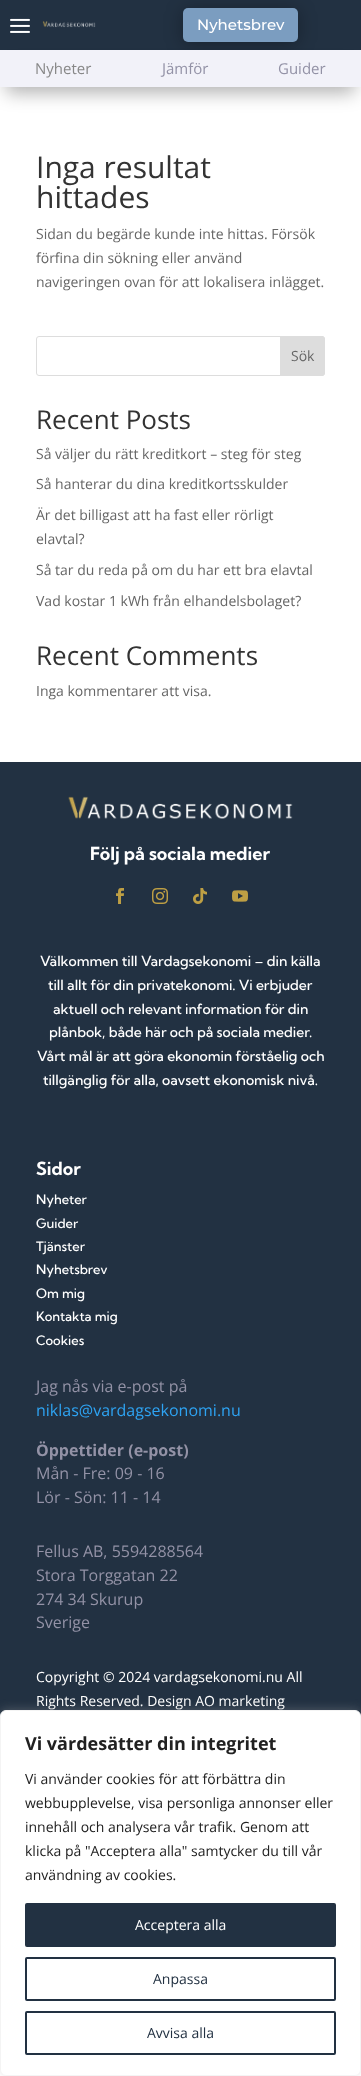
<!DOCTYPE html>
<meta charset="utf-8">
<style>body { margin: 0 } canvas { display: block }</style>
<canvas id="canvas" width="361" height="2076"></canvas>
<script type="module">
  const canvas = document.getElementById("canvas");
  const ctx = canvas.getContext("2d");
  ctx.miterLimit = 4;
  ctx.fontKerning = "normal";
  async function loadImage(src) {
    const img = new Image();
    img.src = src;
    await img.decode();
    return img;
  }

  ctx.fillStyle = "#ffffff";
  ctx.fillRect(0, 0, 361, 2076);
  ctx.fillStyle = "#223142";
  ctx.fillRect(0, 0, 361, 50);
  ctx.drawImage(await loadImage("img1.png"), 10, 18, 20, 15);
  ctx.drawImage(await loadImage("img2.png"), 42, 21, 54, 7);
  ctx.fillStyle = "rgba(0, 0, 0, 0.3)";
  ctx.filter = "blur(9px)";
  ctx.beginPath();
  ctx.roundRect(183, 10, 115, 34, 5);
  ctx.fill();
  ctx.filter = "none";
  ctx.fillStyle = "#7b9dc0";
  ctx.beginPath();
  ctx.roundRect(183, 8, 115, 34, 5);
  ctx.fill();
  ctx.font = "100 15px Montserrat";
  ctx.fillStyle = "#ffffff";
  ctx.fillText("Nyhetsbrev", 197, 30);
  ctx.fillStyle = "rgba(0, 0, 0, 0.3)";
  ctx.filter = "blur(9px)";
  ctx.beginPath();
  ctx.rect(6, 68, 349, 25);
  ctx.fill();
  ctx.filter = "none";
  ctx.fillStyle = "#f2f2f9";
  ctx.fillRect(0, 50, 361, 37);
  ctx.font = "15px Open Sans";
  ctx.fillStyle = "#888888";
  ctx.fillText("Nyheter", 35, 74);
  ctx.fillStyle = "#9392a6";
  ctx.fillText("Jämför", 162, 74);
  ctx.fillText("Guider", 278, 74);
  ctx.font = "30px Open Sans";
  ctx.fillStyle = "#333333";
  ctx.fillText("Inga resultat", 36, 178);
  ctx.fillText("hittades", 36, 208);
  ctx.font = "14px Open Sans";
  ctx.fillStyle = "#666666";
  ctx.fillText("Sidan du begärde kunde inte hittas. Försök", 36, 239);
  ctx.fillText("förfina din sökning eller använd", 36, 263);
  ctx.fillText("navigeringen ovan för att lokalisera inlägget.", 36, 287);
  ctx.beginPath();
  ctx.roundRect(36.5, 336.5, 288, 39, 2.5);
  ctx.strokeStyle = "#dddddd";
  ctx.stroke();
  ctx.fillStyle = "#dddddd";
  ctx.beginPath();
  ctx.roundRect(280.5, 336.5, 44, 39, [0, 2.5, 2.5, 0]);
  ctx.fill();
  ctx.stroke();
  ctx.fillStyle = "#666666";
  ctx.fillText("Sök", 291, 361);
  ctx.font = "26px Open Sans";
  ctx.fillStyle = "#333333";
  ctx.fillText("Recent Posts", 36, 429);
  ctx.font = "14px Open Sans";
  ctx.fillStyle = "#666666";
  ctx.fillText("Så väljer du rätt kreditkort – steg för steg", 36, 459);
  ctx.fillText("Så hanterar du dina kreditkortsskulder", 36, 489);
  ctx.fillText("Är det billigast att ha fast eller rörligt", 36, 520);
  ctx.fillText("elavtal?", 36, 544);
  ctx.fillText("Så tar du reda på om du har ett bra elavtal", 36, 575);
  ctx.fillText("Vad kostar 1 kWh från elhandelsbolaget?", 36, 606);
  ctx.font = "26px Open Sans";
  ctx.fillStyle = "#333333";
  ctx.fillText("Recent Comments", 36, 665);
  ctx.font = "14px Open Sans";
  ctx.fillStyle = "#666666";
  ctx.fillText("Inga kommentarer att visa.", 36, 696);
  ctx.fillStyle = "#223142";
  ctx.fillRect(0, 762, 361, 954);
  ctx.drawImage(await loadImage("img3.png"), 68, 796, 225, 23);
  ctx.font = "bold 18px Kumbh Sans";
  ctx.fillStyle = "#ffffff";
  ctx.fillText("Följ på sociala medier", 90, 860);
  ctx.drawImage(await loadImage("img4.png"), 116, 888, 8, 16);
  ctx.drawImage(await loadImage("img5.png"), 152, 888, 16, 16);
  ctx.drawImage(await loadImage("img6.png"), 193, 888, 14, 16);
  ctx.drawImage(await loadImage("img7.png"), 232, 890, 16, 12);
  ctx.font = "500 14px Kumbh Sans";
  ctx.fillText("Välkommen till Vardagsekonomi – din källa", 40, 966);
  ctx.fillText("till allt för din privatekonomi. Vi erbjuder", 48, 990);
  ctx.fillText("aktuell och relevant information för din", 53, 1014);
  ctx.fillText("plånbok, både här och på sociala medier.", 49, 1037);
  ctx.fillText("Vårt mål är att göra ekonomin förståelig och", 37, 1061);
  ctx.fillText("tillgänglig för alla, oavsett ekonomisk nivå.", 43, 1085);
  ctx.font = "bold 18px Kumbh Sans";
  ctx.fillText("Sidor", 36, 1175);
  ctx.font = "500 13px Kumbh Sans";
  ctx.fillText("Nyheter", 36, 1204);
  ctx.fillText("Guider", 36, 1228);
  ctx.fillText("Tjänster", 36, 1251);
  ctx.fillText("Nyhetsbrev", 36, 1274);
  ctx.fillText("Om mig", 36, 1298);
  ctx.fillText("Kontakta mig", 36, 1321);
  ctx.fillText("Cookies", 36, 1345);
  ctx.font = "16px Open Sans";
  ctx.fillStyle = "#9392a6";
  ctx.fillText("Jag nås via e-post på", 36, 1392);
  ctx.fillStyle = "#2ea3f2";
  ctx.fillText("niklas@vardagsekonomi.nu", 36, 1416);
  ctx.font = "bold 16px Open Sans";
  ctx.fillStyle = "#9392a6";
  ctx.fillText("Öppettider (e-post)", 36, 1456);
  ctx.font = "16px Open Sans";
  ctx.fillText("Mån - Fre: 09 - 16", 36, 1479);
  ctx.fillText("Lör - Sön: 11 - 14", 36, 1503);
  ctx.fillText("Fellus AB, 5594288564", 36, 1557);
  ctx.fillText("Stora Torggatan 22", 36, 1581);
  ctx.fillText("274 34 Skurup", 36, 1605);
  ctx.fillText("Sverige", 36, 1628);
  ctx.font = "14px Open Sans";
  ctx.fillStyle = "#ffffff";
  ctx.fillText("Copyright © 2024 vardagsekonomi.nu All", 36, 1682);
  ctx.fillText("Rights Reserved. Design AO marketing", 36, 1706);
  ctx.fillStyle = "rgba(172, 171, 171, 0.3)";
  ctx.filter = "blur(5px)";
  ctx.beginPath();
  ctx.roundRect(0, 1709, 361, 366, 6);
  ctx.fill();
  ctx.filter = "none";
  ctx.fillStyle = "#ffffff";
  ctx.beginPath();
  ctx.roundRect(0.5, 1710.5, 360, 365, 5.5);
  ctx.fill();
  ctx.strokeStyle = "#f4f4f4";
  ctx.stroke();
  ctx.font = "bold 18px Open Sans";
  ctx.fillStyle = "#212121";
  ctx.fillText("Vi värdesätter din integritet", 25, 1750);
  ctx.font = "14px Open Sans";
  ctx.fillText("Vi använder cookies för att förbättra din", 25, 1784);
  ctx.fillText("webbupplevelse, visa personliga annonser eller", 25, 1808);
  ctx.fillText("innehåll och analysera vår trafik. Genom att", 25, 1832);
  ctx.fillText("klicka på \"Acceptera alla\" samtycker du till vår", 25, 1856);
  ctx.fillText("användning av cookies.", 25, 1880);
  ctx.fillStyle = "#223142";
  ctx.beginPath();
  ctx.roundRect(26, 1904, 309, 42, 1);
  ctx.fill();
  ctx.strokeStyle = "#223142";
  ctx.lineWidth = 2;
  ctx.stroke();
  ctx.fillStyle = "#ffffff";
  ctx.fillText("Acceptera alla", 135, 1930);
  ctx.beginPath();
  ctx.roundRect(26, 1958, 309, 42, 1);
  ctx.stroke();
  ctx.fillStyle = "#223142";
  ctx.fillText("Anpassa", 153, 1984);
  ctx.beginPath();
  ctx.roundRect(26, 2012, 309, 42, 1);
  ctx.stroke();
  ctx.fillText("Avvisa alla", 147, 2038);
</script>
